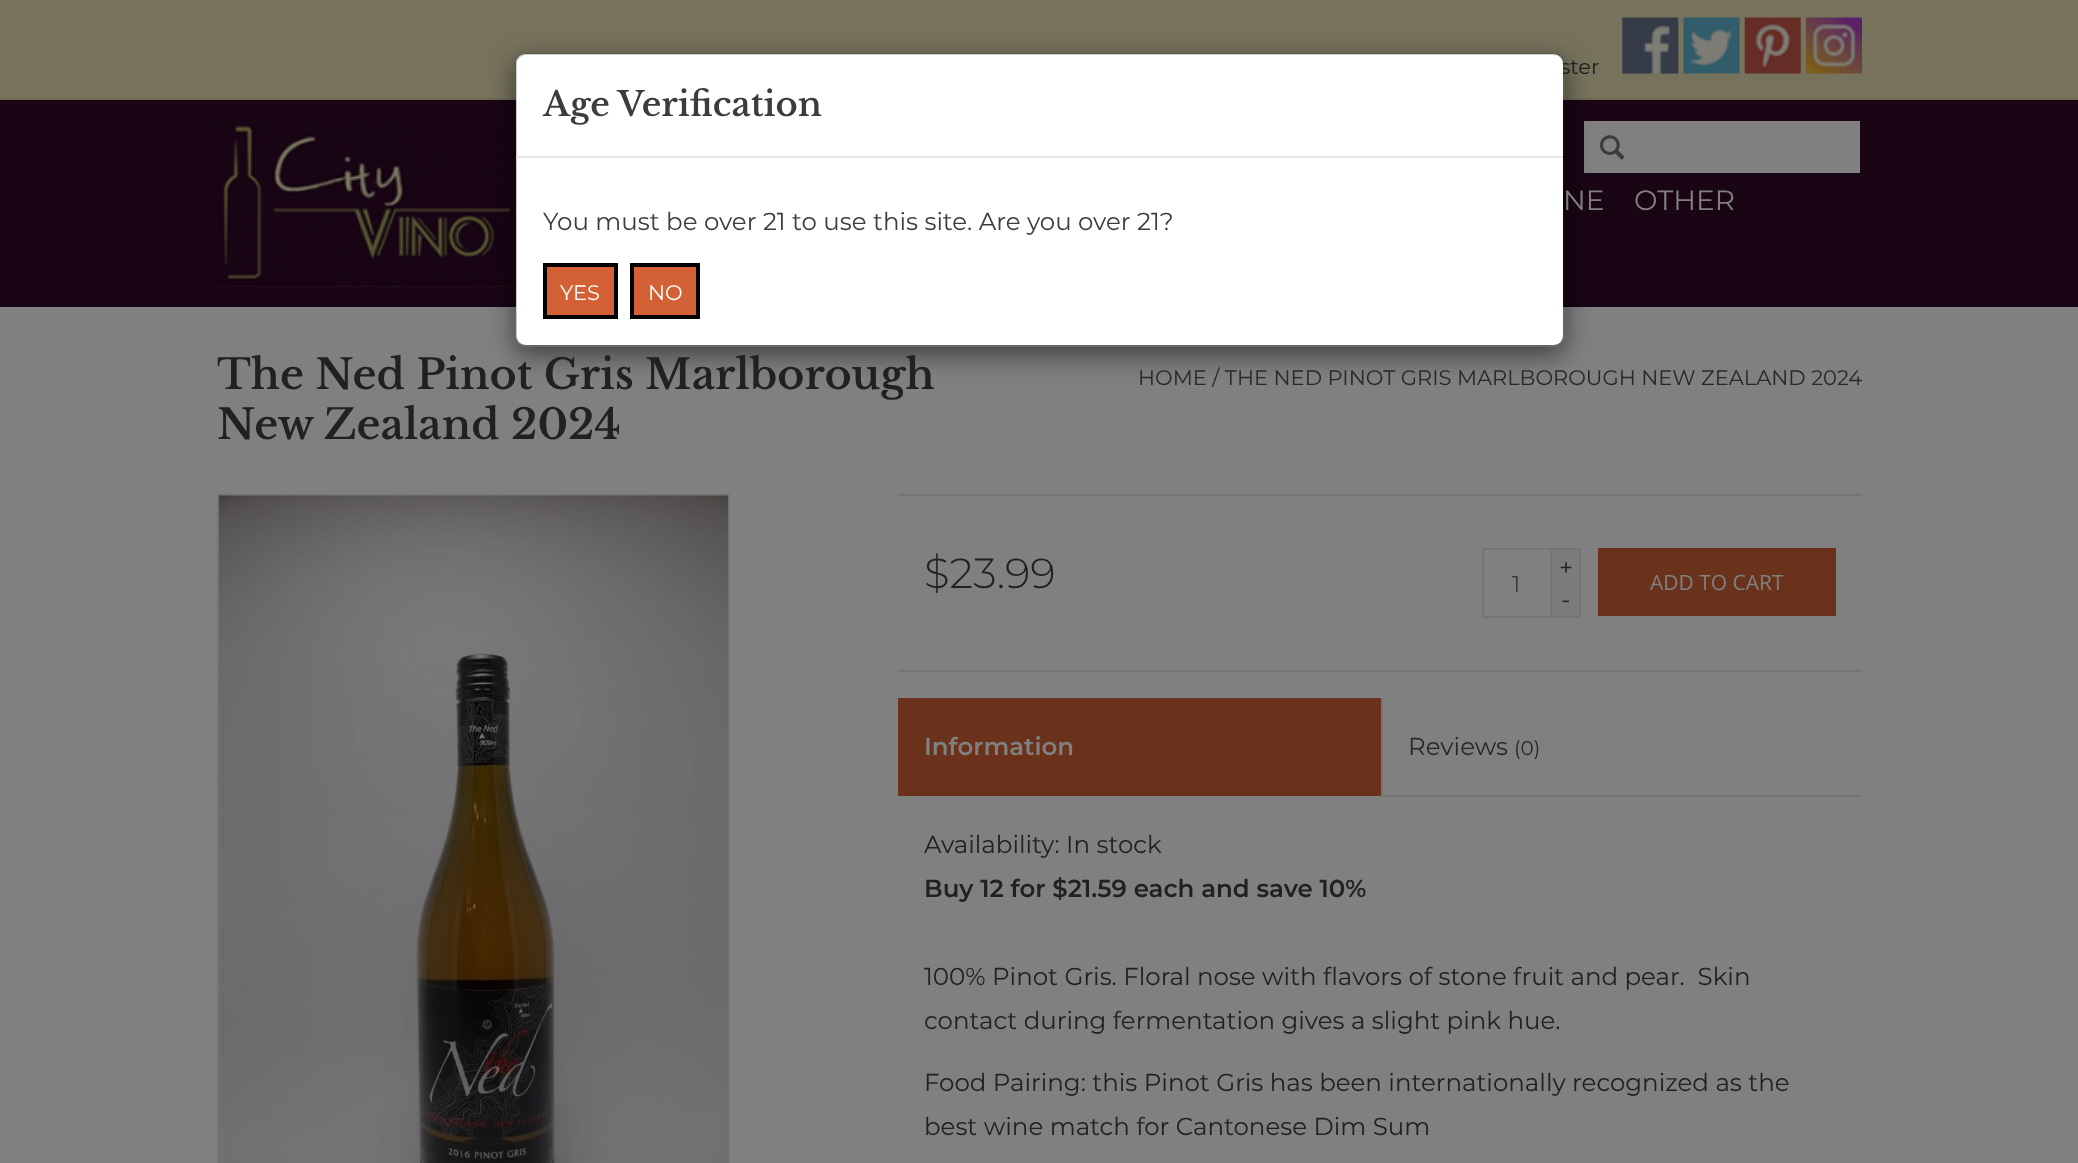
<!DOCTYPE html>
<meta charset="utf-8">
<style>body { margin: 0 } canvas { display: block }</style>
<canvas id="canvas" width="2078" height="1163"></canvas>
<script type="module">
  const canvas = document.getElementById("canvas");
  const ctx = canvas.getContext("2d");
  ctx.miterLimit = 4;
  ctx.fontKerning = "normal";
  async function loadImage(src) {
    const img = new Image();
    img.src = src;
    await img.decode();
    return img;
  }

  ctx.fillStyle = "#808080";
  ctx.fillRect(0, 0, 2078, 1163);
  ctx.fillStyle = "#190514";
  ctx.fillRect(0, 100, 2078, 205);
  ctx.fillStyle = "#170512";
  ctx.fillRect(0, 305, 2078, 2);
  ctx.fillStyle = "#76725c";
  ctx.fillRect(0, 0, 2078, 98);
  ctx.fillStyle = "#6e6a55";
  ctx.fillRect(0, 98, 2078, 2);
  ctx.drawImage(await loadImage("img5.png"), 217, 124, 299, 163);
  ctx.fillStyle = "#808080";
  ctx.fillRect(1584, 121, 276, 52);
  ctx.drawImage(await loadImage("img6.png"), 1600, 135, 25, 25);
  ctx.save();
  ctx.beginPath();
  ctx.moveTo(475, 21);
  ctx.lineTo(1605, 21);
  ctx.lineTo(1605, 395);
  ctx.lineTo(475, 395);
  ctx.closePath();
  ctx.moveTo(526, 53);
  ctx.lineTo(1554, 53);
  ctx.bezierCurveTo(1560, 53, 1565, 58, 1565, 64);
  ctx.lineTo(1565, 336);
  ctx.bezierCurveTo(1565, 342, 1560, 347, 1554, 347);
  ctx.lineTo(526, 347);
  ctx.bezierCurveTo(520, 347, 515, 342, 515, 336);
  ctx.lineTo(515, 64);
  ctx.bezierCurveTo(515, 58, 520, 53, 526, 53);
  ctx.closePath();
  ctx.clip("evenodd");
  ctx.fillStyle = "rgba(0, 0, 0, 0.5)";
  ctx.filter = "blur(13px)";
  ctx.beginPath();
  ctx.roundRect(515, 61, 1050, 294, 11);
  ctx.fill();
  ctx.filter = "none";
  ctx.restore();
  ctx.font = "21px Montserrat";
  ctx.fillStyle = "#212121";
  ctx.fillText("ster", 1560, 74);
  ctx.fillStyle = "#ffffff";
  ctx.beginPath();
  ctx.roundRect(516, 54, 1047, 291, 9);
  ctx.fill();
  ctx.beginPath();
  ctx.roundRect(516, 54, 1048, 292, 10);
  ctx.strokeStyle = "rgba(0, 0, 0, 0.2)";
  ctx.lineWidth = 2;
  ctx.stroke();
  ctx.fillStyle = "#e5e5e5";
  ctx.fillRect(516, 156, 1047, 2);
  ctx.font = "600 33.75px Libre Baskerville";
  ctx.fillStyle = "#3c3c3c";
  ctx.fillText("Age Verification", 543, 116);
  ctx.font = "24.5px Montserrat";
  ctx.fillText("You must be over 21 to use this site. Are you over 21?", 543, 230);
  ctx.fillStyle = "#d36135";
  ctx.beginPath();
  ctx.rect(545, 265, 71, 52);
  ctx.fill();
  ctx.strokeStyle = "#000000";
  ctx.lineWidth = 4;
  ctx.stroke();
  ctx.font = "21px Montserrat";
  ctx.fillStyle = "#ffffff";
  ctx.fillText("YES", 560, 300);
  ctx.fillStyle = "#d36135";
  ctx.beginPath();
  ctx.rect(632, 265, 66, 52);
  ctx.fill();
  ctx.stroke();
  ctx.fillStyle = "#ffffff";
  ctx.fillText("NO", 648, 300);
  ctx.drawImage(await loadImage("img1.png"), 1622, 17, 57, 57);
  ctx.drawImage(await loadImage("img2.png"), 1683, 17, 57, 57);
  ctx.drawImage(await loadImage("img3.png"), 1744, 17, 57, 57);
  ctx.drawImage(await loadImage("img4.png"), 1806, 17, 56, 57);
  ctx.font = "28px Montserrat";
  ctx.fillStyle = "#808080";
  ctx.fillText("NE", 1563, 210);
  ctx.fillText("OTHER", 1634, 210);
  ctx.font = "600 41.3px Libre Baskerville";
  ctx.fillStyle = "#212121";
  ctx.fillText("The Ned Pinot Gris Marlborough", 217, 389);
  ctx.fillText("New Zealand 2024", 217, 439);
  ctx.font = "21px Montserrat";
  ctx.fillStyle = "#282828";
  ctx.fillText("HOME / THE NED PINOT GRIS MARLBOROUGH NEW ZEALAND 2024", 1138, 385);
  ctx.strokeStyle = "#757575";
  ctx.lineWidth = 2;
  ctx.strokeRect(218, 495, 511, 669);
  ctx.fillStyle = "#7c7c7c";
  ctx.fillRect(219, 495, 509, 1);
  ctx.drawImage(await loadImage("img7.png"), 218, 495, 510, 668);
  ctx.fillStyle = "#757575";
  ctx.fillRect(898, 494, 964, 2);
  ctx.font = "300 42px Montserrat";
  ctx.fillStyle = "#212121";
  ctx.fillText("$23.99", 924, 588);
  ctx.strokeRect(1483, 549, 68, 68);
  ctx.font = "23px Montserrat";
  ctx.fillStyle = "#3c3c3c";
  ctx.fillText("1", 1512, 592);
  ctx.fillStyle = "#7c7c7c";
  ctx.fillRect(1552, 550, 27, 66);
  ctx.fillStyle = "#757575";
  ctx.fillRect(1552, 548, 28, 2);
  ctx.fillRect(1579, 548, 2, 70);
  ctx.fillRect(1552, 616, 28, 2);
  ctx.font = "24.5px Montserrat";
  ctx.fillStyle = "#212121";
  ctx.fillText("+", 1559, 576);
  ctx.fillText("-", 1561, 608);
  ctx.fillStyle = "#6a311b";
  ctx.fillRect(1598, 548, 238, 68);
  ctx.font = "21px Open Sans";
  ctx.fillStyle = "#808080";
  ctx.fillText("ADD TO CART", 1650, 590);
  ctx.fillStyle = "#757575";
  ctx.fillRect(898, 670, 964, 2);
  ctx.fillStyle = "#6a311b";
  ctx.fillRect(898, 698, 483, 98);
  ctx.font = "600 24.5px Montserrat";
  ctx.fillStyle = "#808080";
  ctx.fillText("Information", 924, 755);
  ctx.fillStyle = "#757575";
  ctx.fillRect(1381, 795, 481, 2);
  ctx.fillRect(1381, 698, 2, 98);
  ctx.font = "24.5px Montserrat";
  ctx.fillStyle = "#282828";
  ctx.fillText("Reviews", 1408, 755);
  ctx.font = "20px Montserrat";
  ctx.fillText("(0)", 1514, 755);
  ctx.font = "24.5px Montserrat";
  ctx.fillStyle = "#212121";
  ctx.fillText("Availability: In stock", 924, 853);
  ctx.font = "600 24.5px Montserrat";
  ctx.fillText("Buy 12 for $21.59 each and save 10%", 924, 897);
  ctx.font = "24.5px Montserrat";
  ctx.fillText("100% Pinot Gris. Floral nose with flavors of stone fruit and pear.  Skin", 924, 985);
  ctx.fillText("contact during fermentation gives a slight pink hue.", 924, 1029);
  ctx.fillText("Food Pairing: this Pinot Gris has been internationally recognized as the", 924, 1091);
  ctx.fillText("best wine match for Cantonese Dim Sum", 924, 1135);
</script>
